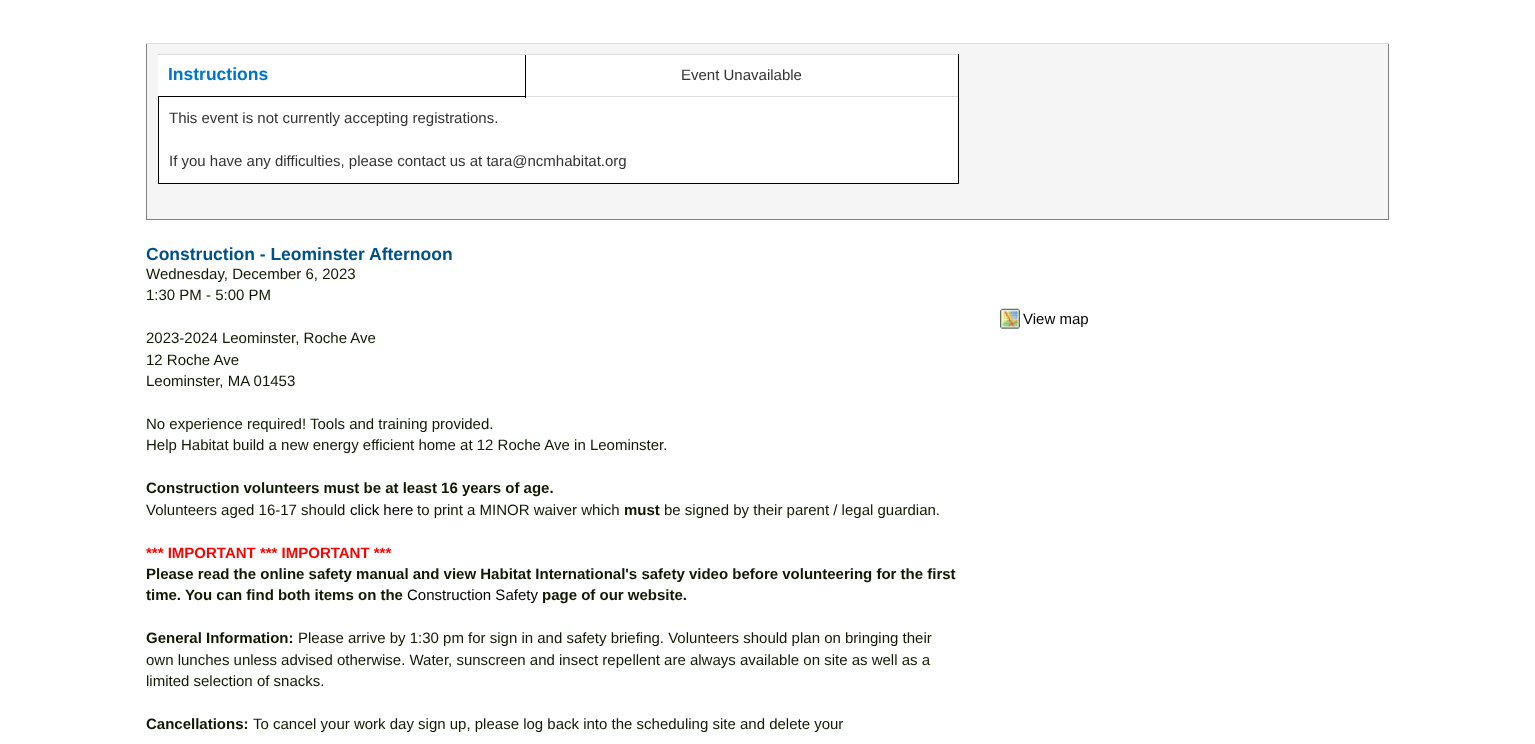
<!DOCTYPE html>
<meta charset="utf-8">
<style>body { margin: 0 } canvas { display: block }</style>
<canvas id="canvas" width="1535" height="744"></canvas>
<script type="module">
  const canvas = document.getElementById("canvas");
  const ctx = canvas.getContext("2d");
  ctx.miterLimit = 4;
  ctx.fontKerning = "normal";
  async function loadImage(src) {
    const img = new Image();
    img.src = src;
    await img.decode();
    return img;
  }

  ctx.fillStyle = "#ffffff";
  ctx.fillRect(0, 0, 1535, 744);
  ctx.fillStyle = "#f5f5f5";
  ctx.fillRect(147, 44, 1241, 175);
  ctx.fillStyle = "#808080";
  ctx.fillRect(1388, 43, 1, 177);
  ctx.fillRect(146, 219, 1243, 1);
  ctx.fillRect(146, 43, 1, 177);
  ctx.fillStyle = "#dddddd";
  ctx.fillRect(146, 43, 1243, 1);
  ctx.fillStyle = "#ffffff";
  ctx.fillRect(158, 55, 800, 128);
  ctx.fillStyle = "#dddddd";
  ctx.fillRect(525, 54, 434, 1);
  ctx.fillStyle = "#000000";
  ctx.fillRect(525, 54, 1, 44);
  ctx.fillStyle = "#dddddd";
  ctx.fillRect(158, 54, 368, 1);
  ctx.fillRect(526, 96, 433, 1);
  ctx.fillStyle = "#000000";
  ctx.fillRect(958, 96, 1, 88);
  ctx.fillRect(158, 183, 801, 1);
  ctx.fillRect(158, 96, 1, 88);
  ctx.fillRect(158, 96, 368, 1);
  ctx.font = "bold 17.5px Liberation Sans";
  ctx.fillStyle = "#0074c9";
  ctx.fillText("Instructions", 168, 80);
  ctx.fillStyle = "#000000";
  ctx.fillRect(958, 54, 1, 44);
  ctx.font = "15px Liberation Sans";
  ctx.fillStyle = "#333333";
  ctx.fillText("Event Unavailable", 681, 80);
  ctx.fillText("This event is not currently accepting registrations.", 169, 123);
  ctx.fillText("If you have any difficulties, please contact us at tara@ncmhabitat.org", 169, 166);
  ctx.font = "bold 17.5px Liberation Sans";
  ctx.fillStyle = "#00508b";
  ctx.fillText("Construction - Leominster", 146, 260);
  ctx.fillText("Afternoon", 369, 260);
  ctx.font = "15px Liberation Sans";
  ctx.fillStyle = "#101903";
  ctx.fillText("Wednesday, December 6, 2023", 146, 279);
  ctx.fillText("1:30 PM - 5:00 PM", 146, 300);
  ctx.fillText("2023-2024 Leominster, Roche Ave", 146, 343);
  ctx.fillText("12 Roche Ave", 146, 365);
  ctx.fillText("Leominster, MA 01453", 146, 386);
  ctx.fillText("No experience required! Tools and training provided.", 146, 429);
  ctx.fillText("Help Habitat build a new energy efficient home at 12 Roche Ave in Leominster.", 146, 450);
  ctx.font = "bold 15px Liberation Sans";
  ctx.fillText("Construction volunteers must be at least 16 years of age.", 146, 493);
  ctx.font = "15px Liberation Sans";
  ctx.fillText("Volunteers aged 16-17 should", 146, 515);
  ctx.fillStyle = "#000000";
  ctx.fillText("click here", 350, 515);
  ctx.fillStyle = "#101903";
  ctx.fillText("to print a MINOR waiver which", 417, 515);
  ctx.font = "bold 15px Liberation Sans";
  ctx.fillText("must", 624, 515);
  ctx.font = "15px Liberation Sans";
  ctx.fillText("be signed by their parent / legal guardian.", 664, 515);
  ctx.font = "bold 15px Liberation Sans";
  ctx.fillStyle = "#ff0000";
  ctx.fillText("*** IMPORTANT *** IMPORTANT ***", 146, 558);
  ctx.fillStyle = "#101903";
  ctx.fillText("Please read the online safety manual and view Habitat International's safety video before volunteering for the first", 146, 579);
  ctx.fillText("time. You can find both items on the", 146, 600);
  ctx.font = "15px Liberation Sans";
  ctx.fillStyle = "#000000";
  ctx.fillText("Construction Safety", 407, 600);
  ctx.font = "bold 15px Liberation Sans";
  ctx.fillStyle = "#101903";
  ctx.fillText("page of our website.", 542, 600);
  ctx.fillText("General Information:", 146, 643);
  ctx.font = "15px Liberation Sans";
  ctx.fillText("Please arrive by 1:30 pm for sign in and safety briefing. Volunteers should plan on bringing their", 298, 643);
  ctx.fillText("own lunches unless advised otherwise. Water, sunscreen and insect repellent are always available on site as well as a", 146, 665);
  ctx.fillText("limited selection of snacks.", 146, 686);
  ctx.font = "bold 15px Liberation Sans";
  ctx.fillText("Cancellations:", 146, 729);
  ctx.font = "15px Liberation Sans";
  ctx.fillText("To cancel your work day sign up, please log back into the scheduling site and delete your", 253, 729);
  ctx.drawImage(await loadImage("img1.png"), 1000, 308, 20, 21);
  ctx.fillStyle = "#000000";
  ctx.fillText("View map", 1023, 324);
</script>
